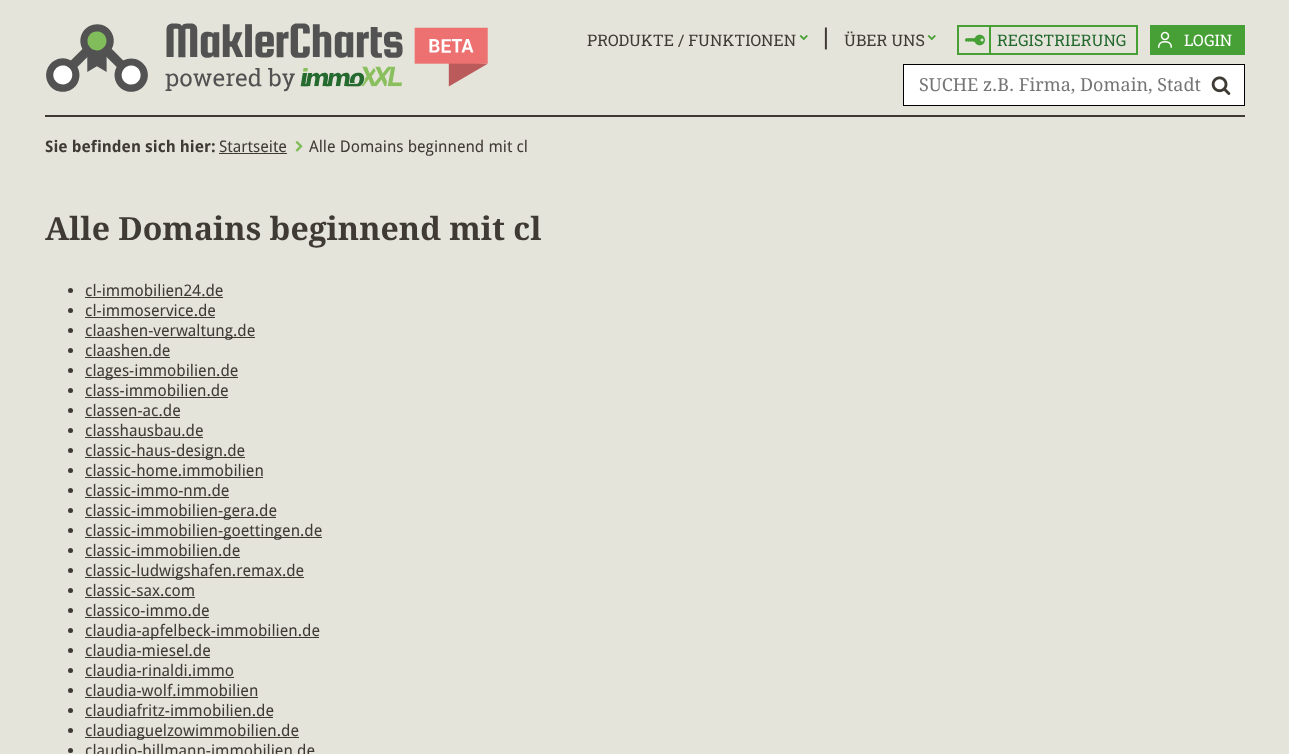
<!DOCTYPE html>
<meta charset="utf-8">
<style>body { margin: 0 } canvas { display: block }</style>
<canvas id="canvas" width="1289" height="754"></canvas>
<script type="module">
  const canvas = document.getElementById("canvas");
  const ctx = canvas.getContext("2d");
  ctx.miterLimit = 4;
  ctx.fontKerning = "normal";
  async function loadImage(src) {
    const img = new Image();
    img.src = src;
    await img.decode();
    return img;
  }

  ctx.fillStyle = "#e4e4da";
  ctx.fillRect(0, 0, 1289, 754);
  ctx.fillStyle = "#3f3a34";
  ctx.fillRect(45, 115, 1200, 2);
  ctx.drawImage(await loadImage("img1.png"), 46, 23, 442, 69);
  ctx.font = "16px Roboto Slab";
  ctx.fillText("PRODUKTE / FUNKTIONEN", 587, 46);
  ctx.drawImage(await loadImage("img2.png"), 799, 35, 9, 6);
  ctx.font = "26px Roboto Slab";
  ctx.fillText("|", 823, 46);
  ctx.font = "16px Roboto Slab";
  ctx.fillText("ÜBER UNS", 844, 46);
  ctx.drawImage(await loadImage("img2.png"), 927, 35, 9, 6);
  ctx.strokeStyle = "#47a036";
  ctx.lineWidth = 2;
  ctx.strokeRect(958, 26, 179, 28);
  ctx.fillStyle = "#47a036";
  ctx.fillRect(989, 27, 2, 27);
  ctx.drawImage(await loadImage("img3.png"), 965, 34, 20, 12);
  ctx.fillStyle = "#23692e";
  ctx.fillText("REGISTRIERUNG", 997, 46);
  ctx.fillStyle = "#47a036";
  ctx.fillRect(1150, 25, 95, 30);
  ctx.drawImage(await loadImage("img4.png"), 1158, 31, 14, 17);
  ctx.fillStyle = "#ffffff";
  ctx.fillText("LOGIN", 1184, 46);
  ctx.fillRect(904, 65, 340, 40);
  ctx.drawImage(await loadImage("img5.png"), 1211, 76, 20, 19);
  ctx.strokeStyle = "#000000";
  ctx.lineWidth = 1;
  ctx.strokeRect(903.5, 64.5, 341, 41);
  ctx.font = "18px Droid Serif";
  ctx.fillStyle = "#757575";
  ctx.fillText("SUCHE z.B. Firma, Domain, Stadt", 919, 91);
  ctx.font = "bold 16px Droid Sans";
  ctx.fillStyle = "#3f3a34";
  ctx.fillText("Sie befinden sich hier:", 45, 152);
  ctx.font = "16px Droid Sans";
  ctx.fillText("Startseite", 219, 152);
  ctx.fillRect(219, 153, 68, 1);
  ctx.drawImage(await loadImage("img6.png"), 295, 141, 8, 11);
  ctx.fillText("Alle Domains beginnend mit cl", 309, 152);
  ctx.font = "bold 32px Droid Serif";
  ctx.fillText("Alle Domains beginnend mit cl", 45, 240);
  ctx.beginPath();
  ctx.arc(70.5, 290.5, 2.5, 0, Math.PI * 2);
  ctx.fill();
  ctx.font = "16px Droid Sans";
  ctx.fillText("cl-immobilien24.de", 85, 296);
  ctx.fillRect(85, 297, 138, 1);
  ctx.beginPath();
  ctx.arc(70.5, 310.5, 2.5, 0, Math.PI * 2);
  ctx.fill();
  ctx.fillText("cl-immoservice.de", 85, 316);
  ctx.fillRect(85, 317, 130, 1);
  ctx.beginPath();
  ctx.arc(70.5, 330.5, 2.5, 0, Math.PI * 2);
  ctx.fill();
  ctx.fillRect(85, 337, 170, 1);
  ctx.fillText("claashen-verwaltung.de", 85, 336);
  ctx.beginPath();
  ctx.arc(70.5, 350.5, 2.5, 0, Math.PI * 2);
  ctx.fill();
  ctx.fillText("claashen.de", 85, 356);
  ctx.fillRect(85, 357, 85, 1);
  ctx.beginPath();
  ctx.arc(70.5, 370.5, 2.5, 0, Math.PI * 2);
  ctx.fill();
  ctx.fillRect(85, 377, 153, 1);
  ctx.fillText("clages-immobilien.de", 85, 376);
  ctx.beginPath();
  ctx.arc(70.5, 390.5, 2.5, 0, Math.PI * 2);
  ctx.fill();
  ctx.fillText("class-immobilien.de", 85, 396);
  ctx.fillRect(85, 397, 143, 1);
  ctx.beginPath();
  ctx.arc(70.5, 410.5, 2.5, 0, Math.PI * 2);
  ctx.fill();
  ctx.fillText("classen-ac.de", 85, 416);
  ctx.fillRect(85, 417, 95, 1);
  ctx.beginPath();
  ctx.arc(70.5, 430.5, 2.5, 0, Math.PI * 2);
  ctx.fill();
  ctx.fillText("classhausbau.de", 85, 436);
  ctx.fillRect(85, 437, 118, 1);
  ctx.beginPath();
  ctx.arc(70.5, 450.5, 2.5, 0, Math.PI * 2);
  ctx.fill();
  ctx.fillRect(85, 457, 160, 1);
  ctx.fillText("classic-haus-design.de", 85, 456);
  ctx.beginPath();
  ctx.arc(70.5, 470.5, 2.5, 0, Math.PI * 2);
  ctx.fill();
  ctx.fillText("classic-home.immobilien", 85, 476);
  ctx.fillRect(85, 477, 178, 1);
  ctx.beginPath();
  ctx.arc(70.5, 490.5, 2.5, 0, Math.PI * 2);
  ctx.fill();
  ctx.fillText("classic-immo-nm.de", 85, 496);
  ctx.fillRect(85, 497, 144, 1);
  ctx.beginPath();
  ctx.arc(70.5, 510.5, 2.5, 0, Math.PI * 2);
  ctx.fill();
  ctx.fillRect(85, 517, 191, 1);
  ctx.fillText("classic-immobilien-gera.de", 85, 516);
  ctx.beginPath();
  ctx.arc(70.5, 530.5, 2.5, 0, Math.PI * 2);
  ctx.fill();
  ctx.fillRect(85, 537, 237, 1);
  ctx.fillText("classic-immobilien-goettingen.de", 85, 536);
  ctx.beginPath();
  ctx.arc(70.5, 550.5, 2.5, 0, Math.PI * 2);
  ctx.fill();
  ctx.fillText("classic-immobilien.de", 85, 556);
  ctx.fillRect(85, 557, 155, 1);
  ctx.beginPath();
  ctx.arc(70.5, 570.5, 2.5, 0, Math.PI * 2);
  ctx.fill();
  ctx.fillRect(85, 577, 219, 1);
  ctx.fillText("classic-ludwigshafen.remax.de", 85, 576);
  ctx.beginPath();
  ctx.arc(70.5, 590.5, 2.5, 0, Math.PI * 2);
  ctx.fill();
  ctx.fillText("classic-sax.com", 85, 596);
  ctx.fillRect(85, 597, 110, 1);
  ctx.beginPath();
  ctx.arc(70.5, 610.5, 2.5, 0, Math.PI * 2);
  ctx.fill();
  ctx.fillText("classico-immo.de", 85, 616);
  ctx.fillRect(85, 617, 124, 1);
  ctx.beginPath();
  ctx.arc(70.5, 630.5, 2.5, 0, Math.PI * 2);
  ctx.fill();
  ctx.fillRect(85, 637, 234, 1);
  ctx.fillText("claudia-apfelbeck-immobilien.de", 85, 636);
  ctx.beginPath();
  ctx.arc(70.5, 650.5, 2.5, 0, Math.PI * 2);
  ctx.fill();
  ctx.fillText("claudia-miesel.de", 85, 656);
  ctx.fillRect(85, 657, 125, 1);
  ctx.beginPath();
  ctx.arc(70.5, 670.5, 2.5, 0, Math.PI * 2);
  ctx.fill();
  ctx.fillText("claudia-rinaldi.immo", 85, 676);
  ctx.fillRect(85, 677, 149, 1);
  ctx.beginPath();
  ctx.arc(70.5, 690.5, 2.5, 0, Math.PI * 2);
  ctx.fill();
  ctx.fillText("claudia-wolf.immobilien", 85, 696);
  ctx.fillRect(85, 697, 173, 1);
  ctx.beginPath();
  ctx.arc(70.5, 710.5, 2.5, 0, Math.PI * 2);
  ctx.fill();
  ctx.fillText("claudiafritz-immobilien.de", 85, 716);
  ctx.fillRect(85, 717, 188, 1);
  ctx.beginPath();
  ctx.arc(70.5, 730.5, 2.5, 0, Math.PI * 2);
  ctx.fill();
  ctx.fillRect(85, 737, 214, 1);
  ctx.fillText("claudiaguelzowimmobilien.de", 85, 736);
  ctx.beginPath();
  ctx.arc(70.5, 750.5, 2.5, 0, Math.PI * 2);
  ctx.fill();
  ctx.fillText("claudio-billmann-immobilien.de", 85, 756);
</script>
